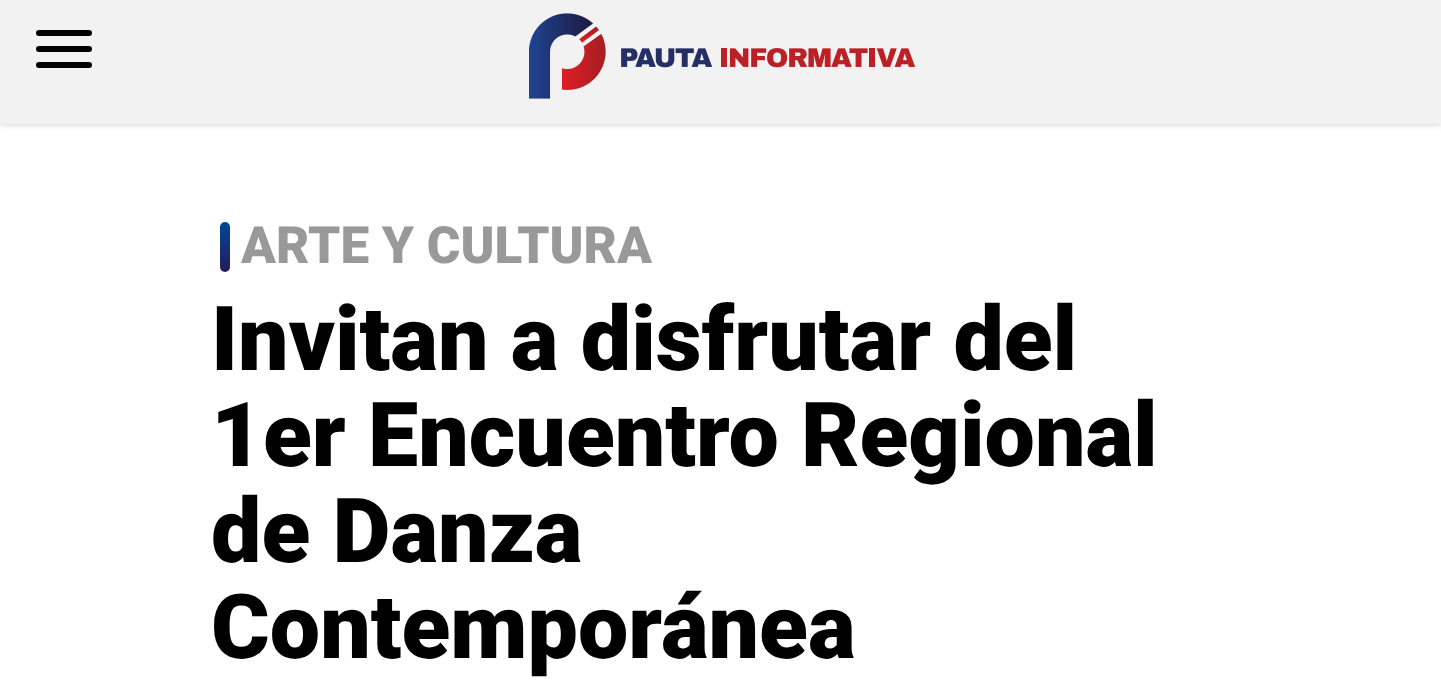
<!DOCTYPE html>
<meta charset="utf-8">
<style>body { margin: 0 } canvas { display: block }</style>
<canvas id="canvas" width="1441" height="688"></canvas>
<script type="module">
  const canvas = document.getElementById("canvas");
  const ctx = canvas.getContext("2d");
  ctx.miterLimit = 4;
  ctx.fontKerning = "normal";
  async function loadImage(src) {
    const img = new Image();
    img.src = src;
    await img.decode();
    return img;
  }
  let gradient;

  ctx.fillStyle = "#ffffff";
  ctx.fillRect(0, 0, 1441, 688);
  ctx.fillStyle = "#cacaca";
  ctx.filter = "blur(3px)";
  ctx.beginPath();
  ctx.rect(0, 0, 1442, 124);
  ctx.fill();
  ctx.filter = "none";
  ctx.fillStyle = "#f2f2f2";
  ctx.fillRect(0, 0, 1441, 124);
  ctx.fillStyle = "#000000";
  ctx.beginPath();
  ctx.roundRect(36, 30, 56, 6, 3);
  ctx.fill();
  ctx.beginPath();
  ctx.roundRect(36, 46, 56, 6, 3);
  ctx.fill();
  ctx.beginPath();
  ctx.roundRect(36, 62, 56, 6, 3);
  ctx.fill();
  ctx.drawImage(await loadImage("img1.png"), 529, 13, 387, 86);
  gradient = ctx.createLinearGradient(225, 222, 225, 272);
  gradient.addColorStop(0, "#004899");
  gradient.addColorStop(1, "#251b5b");
  ctx.fillStyle = gradient;
  ctx.beginPath();
  ctx.roundRect(220, 222, 10, 50, 5);
  ctx.fill();
  ctx.font = "900 51.25px Roboto";
  ctx.fillStyle = "#999999";
  ctx.fillText("ARTE Y CULTURA", 241, 263);
  ctx.font = "900 89.6px Roboto";
  ctx.fillStyle = "#000000";
  ctx.fillText("Invitan a disfrutar del", 211, 370);
  ctx.fillText("1er Encuentro Regional", 211, 466);
  ctx.fillText("de Danza", 211, 562);
  ctx.fillText("Contemporánea", 211, 658);
</script>
